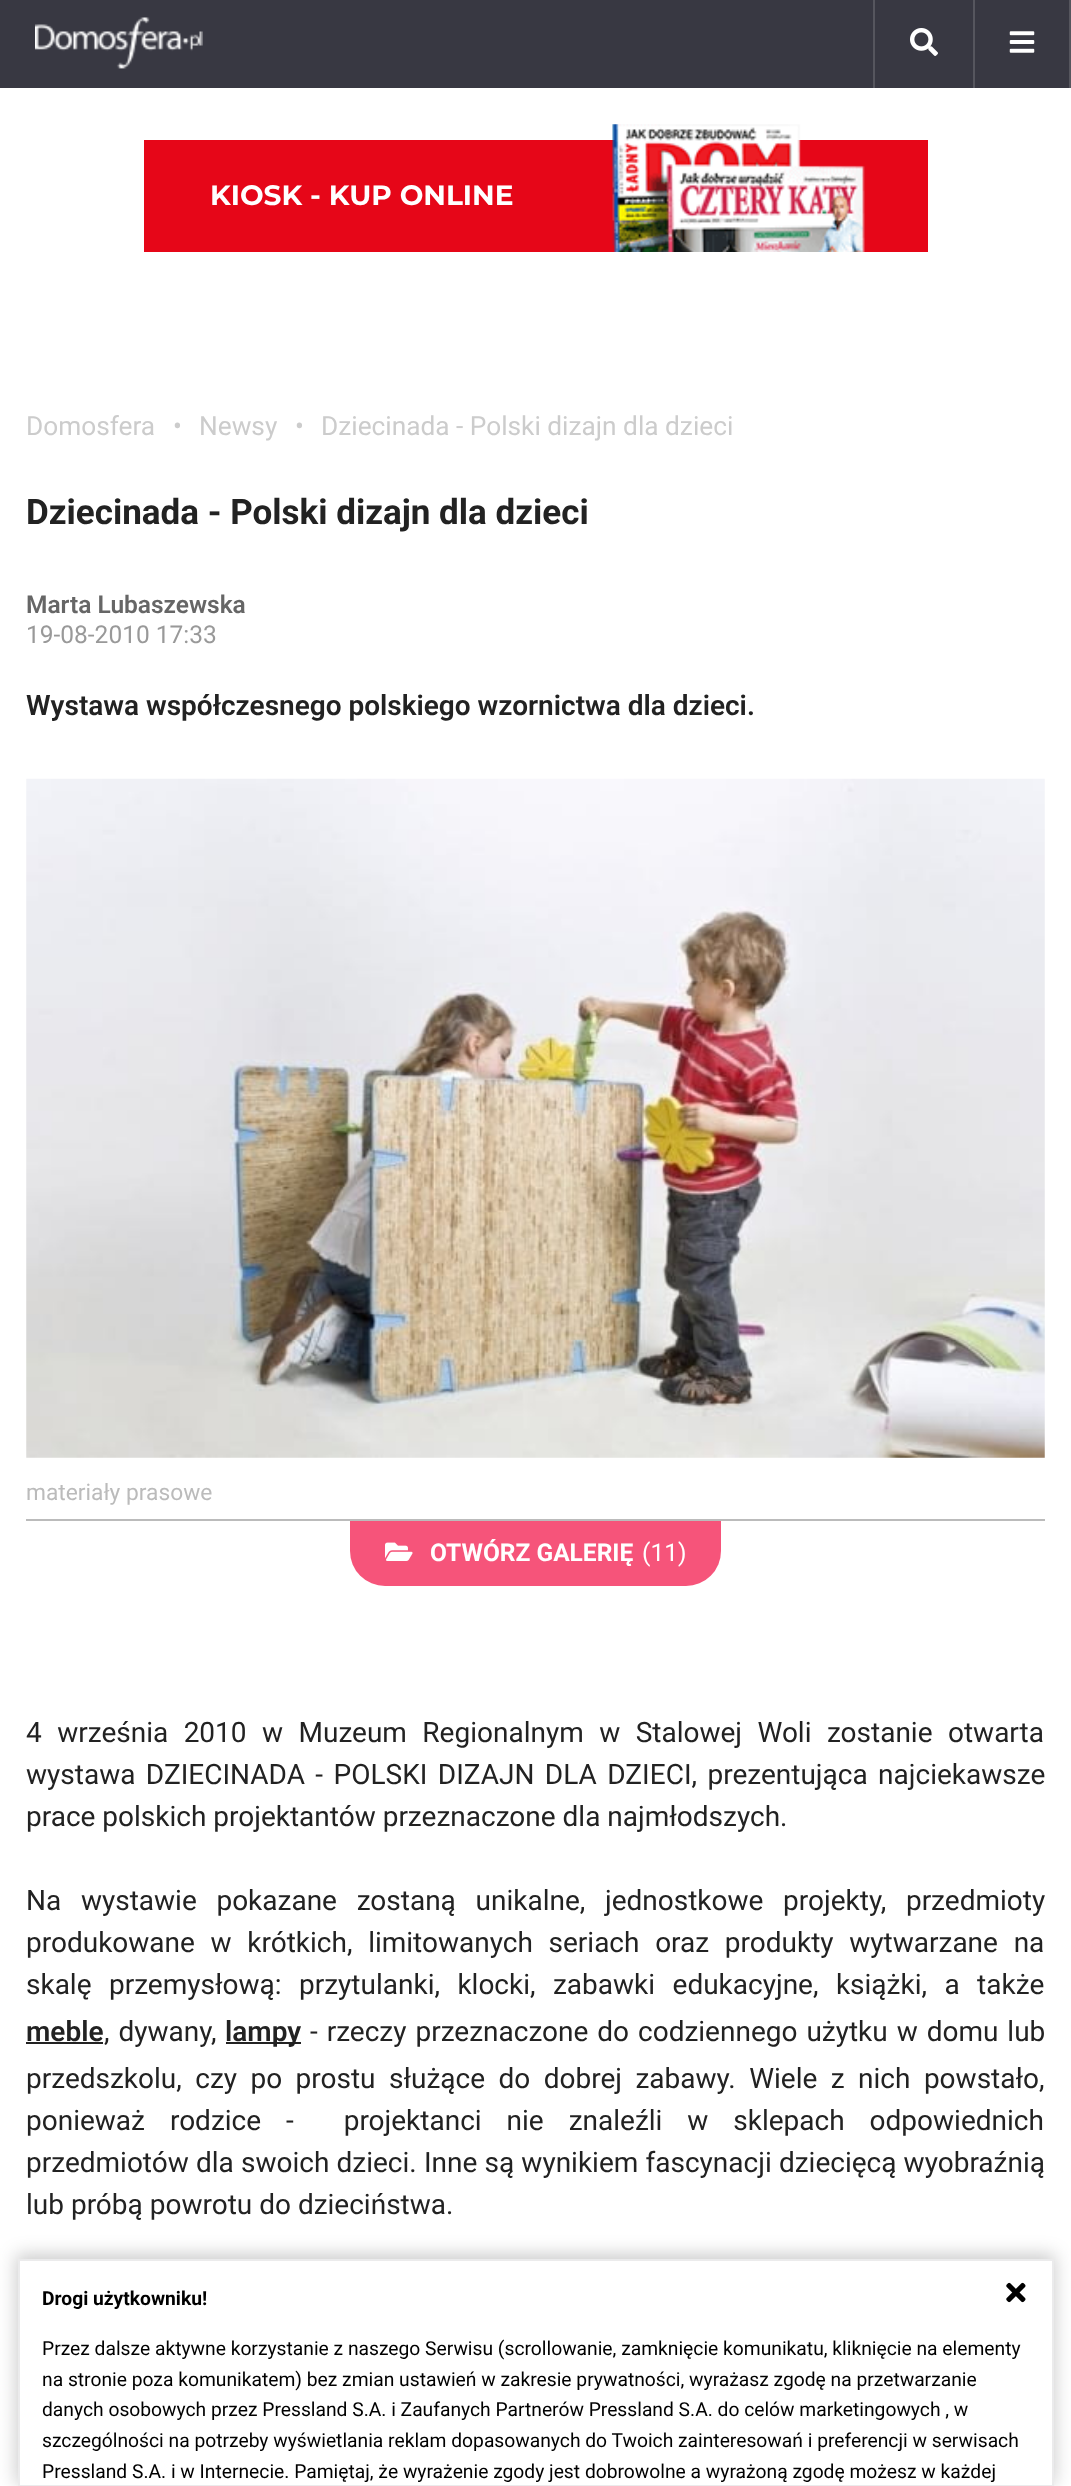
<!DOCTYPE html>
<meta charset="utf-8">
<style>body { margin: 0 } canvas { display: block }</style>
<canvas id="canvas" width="1071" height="2486"></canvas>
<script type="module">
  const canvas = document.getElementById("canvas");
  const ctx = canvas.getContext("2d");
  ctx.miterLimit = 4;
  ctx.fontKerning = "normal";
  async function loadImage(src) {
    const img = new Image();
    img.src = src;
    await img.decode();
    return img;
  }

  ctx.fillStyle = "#ffffff";
  ctx.fillRect(0, 0, 1071, 2486);
  ctx.fillStyle = "#383842";
  ctx.fillRect(0, 0, 1069, 88);
  ctx.drawImage(await loadImage("img1.png"), 35, 17, 168, 52);
  ctx.fillStyle = "#56565e";
  ctx.fillRect(873, 0, 2, 88);
  ctx.drawImage(await loadImage("img2.png"), 910, 28, 28, 28);
  ctx.fillRect(1069, 0, 2, 88);
  ctx.fillRect(973, 0, 2, 88);
  ctx.drawImage(await loadImage("img3.png"), 1009, 31, 26, 22);
  ctx.fillStyle = "#e60618";
  ctx.fillRect(144, 140, 784, 112);
  ctx.font = "bold 28px Montserrat";
  ctx.fillStyle = "#ffffff";
  ctx.fillText("KIOSK - KUP ONLINE", 210, 205);
  ctx.drawImage(await loadImage("img4.png"), 612, 124, 253, 128);
  ctx.font = "26.25px Roboto";
  ctx.fillStyle = "#cccccc";
  ctx.fillText("Domosfera", 26, 435);
  ctx.fillText("•", 173, 435);
  ctx.fillText("Newsy", 199, 435);
  ctx.fillText("•", 295, 435);
  ctx.fillText("Dziecinada - Polski dizajn dla dzieci", 321, 435);
  ctx.font = "bold 35px Roboto";
  ctx.fillStyle = "#222222";
  ctx.fillText("Dziecinada - Polski dizajn dla dzieci", 26, 524);
  ctx.font = "600 24.5px Roboto";
  ctx.fillStyle = "#666666";
  ctx.fillText("Marta Lubaszewska", 26, 613);
  ctx.font = "24.5px Roboto";
  ctx.fillStyle = "#999999";
  ctx.fillText("19-08-2010 17:33", 26, 643);
  ctx.font = "600 28px Roboto";
  ctx.fillStyle = "#222222";
  ctx.fillText("Wystawa współczesnego polskiego wzornictwa dla dzieci.", 26, 715);
  ctx.drawImage(await loadImage("img5.png"), 26, 778, 1019, 680);
  ctx.fillStyle = "#bbbbbb";
  ctx.fillRect(26, 1519, 1019, 2);
  ctx.font = "22.75px Roboto";
  ctx.fillText("materiały prasowe", 26, 1500);
  ctx.fillStyle = "#f6547a";
  ctx.beginPath();
  ctx.roundRect(350, 1521, 371, 65, [0, 0, 35, 35]);
  ctx.fill();
  ctx.drawImage(await loadImage("img6.png"), 385, 1542, 28, 19);
  ctx.font = "bold 24.5px Roboto";
  ctx.fillStyle = "#ffffff";
  ctx.fillText("OTWÓRZ GALERIĘ", 430, 1561);
  ctx.font = "24.5px Roboto";
  ctx.fillText("(11)", 642, 1561);
  ctx.wordSpacing = "8.5px";
  ctx.font = "28px Roboto";
  ctx.fillStyle = "#222222";
  ctx.fillText("4 września 2010 w Muzeum Regionalnym w Stalowej Woli zostanie otwarta", 26, 1742);
  ctx.wordSpacing = "3.5px";
  ctx.fillText("wystawa DZIECINADA - POLSKI DIZAJN DLA DZIECI, prezentująca najciekawsze", 26, 1784);
  ctx.wordSpacing = "0px";
  ctx.fillText("prace polskich projektantów przeznaczone dla najmłodszych.", 26, 1826);
  ctx.wordSpacing = "12.75px";
  ctx.fillText("Na wystawie pokazane zostaną unikalne, jednostkowe projekty, przedmioty", 26, 1910);
  ctx.wordSpacing = "8.75px";
  ctx.fillText("produkowane w krótkich, limitowanych seriach oraz produkty wytwarzane na", 26, 1952);
  ctx.wordSpacing = "10.5px";
  ctx.fillText("skalę przemysłową: przytulanki, klocki, zabawki edukacyjne, książki, a także", 26, 1994);
  ctx.wordSpacing = "0px";
  ctx.font = "600 28px Roboto";
  ctx.fillText("meble", 26, 2041);
  ctx.fillRect(26, 2042, 77, 2);
  ctx.wordSpacing = "2px";
  ctx.font = "28px Roboto";
  ctx.fillText(", dywany,", 104, 2041);
  ctx.fillRect(226, 2042, 75, 2);
  ctx.wordSpacing = "0px";
  ctx.font = "600 28px Roboto";
  ctx.fillText("lampy", 225, 2041);
  ctx.wordSpacing = "2px";
  ctx.font = "28px Roboto";
  ctx.fillText("- rzeczy przeznaczone do codziennego użytku w domu lub", 310, 2041);
  ctx.wordSpacing = "6.5px";
  ctx.fillText("przedszkolu, czy po prostu służące do dobrej zabawy. Wiele z nich powstało,", 26, 2088);
  ctx.wordSpacing = "18px";
  ctx.fillText("ponieważ rodzice -  projektanci nie znaleźli w sklepach odpowiednich", 26, 2130);
  ctx.wordSpacing = "0.25px";
  ctx.fillText("przedmiotów dla swoich dzieci. Inne są wynikiem fascynacji dziecięcą wyobraźnią", 26, 2172);
  ctx.wordSpacing = "0px";
  ctx.fillText("lub próbą powrotu do dzieciństwa.", 26, 2214);
  ctx.save();
  ctx.beginPath();
  ctx.moveTo(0, 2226);
  ctx.lineTo(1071, 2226);
  ctx.lineTo(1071, 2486);
  ctx.lineTo(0, 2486);
  ctx.closePath();
  ctx.moveTo(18, 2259);
  ctx.lineTo(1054, 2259);
  ctx.lineTo(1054, 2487);
  ctx.lineTo(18, 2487);
  ctx.closePath();
  ctx.clip("evenodd");
  ctx.fillStyle = "rgba(0, 0, 0, 0.2)";
  ctx.filter = "blur(9px)";
  ctx.beginPath();
  ctx.rect(16, 2254, 1039, 231);
  ctx.fill();
  ctx.filter = "none";
  ctx.restore();
  ctx.strokeStyle = "#ebebec";
  ctx.lineWidth = 2;
  ctx.strokeRect(19, 2260, 1034, 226);
  ctx.font = "bold 19.25px Roboto";
  ctx.fillStyle = "#000000";
  ctx.fillText("Drogi użytkowniku!", 42, 2305);
  ctx.drawImage(await loadImage("img7.png"), 1006, 2282, 20, 21);
  ctx.font = "19.25px Roboto";
  ctx.fillText("Przez dalsze aktywne korzystanie z naszego Serwisu (scrollowanie, zamknięcie komunikatu, kliknięcie na elementy", 42, 2355);
  ctx.fillText("na stronie poza komunikatem) bez zmian ustawień w zakresie prywatności, wyrażasz zgodę na przetwarzanie", 42, 2386);
  ctx.fillText("danych osobowych przez Pressland S.A. i Zaufanych Partnerów Pressland S.A. do celów marketingowych , w", 42, 2416);
  ctx.fillText("szczególności na potrzeby wyświetlania reklam dopasowanych do Twoich zainteresowań i preferencji w serwisach", 42, 2447);
  ctx.fillText("Pressland S.A. i w Internecie. Pamiętaj, że wyrażenie zgody jest dobrowolne a wyrażoną zgodę możesz w każdej", 42, 2478);
</script>
